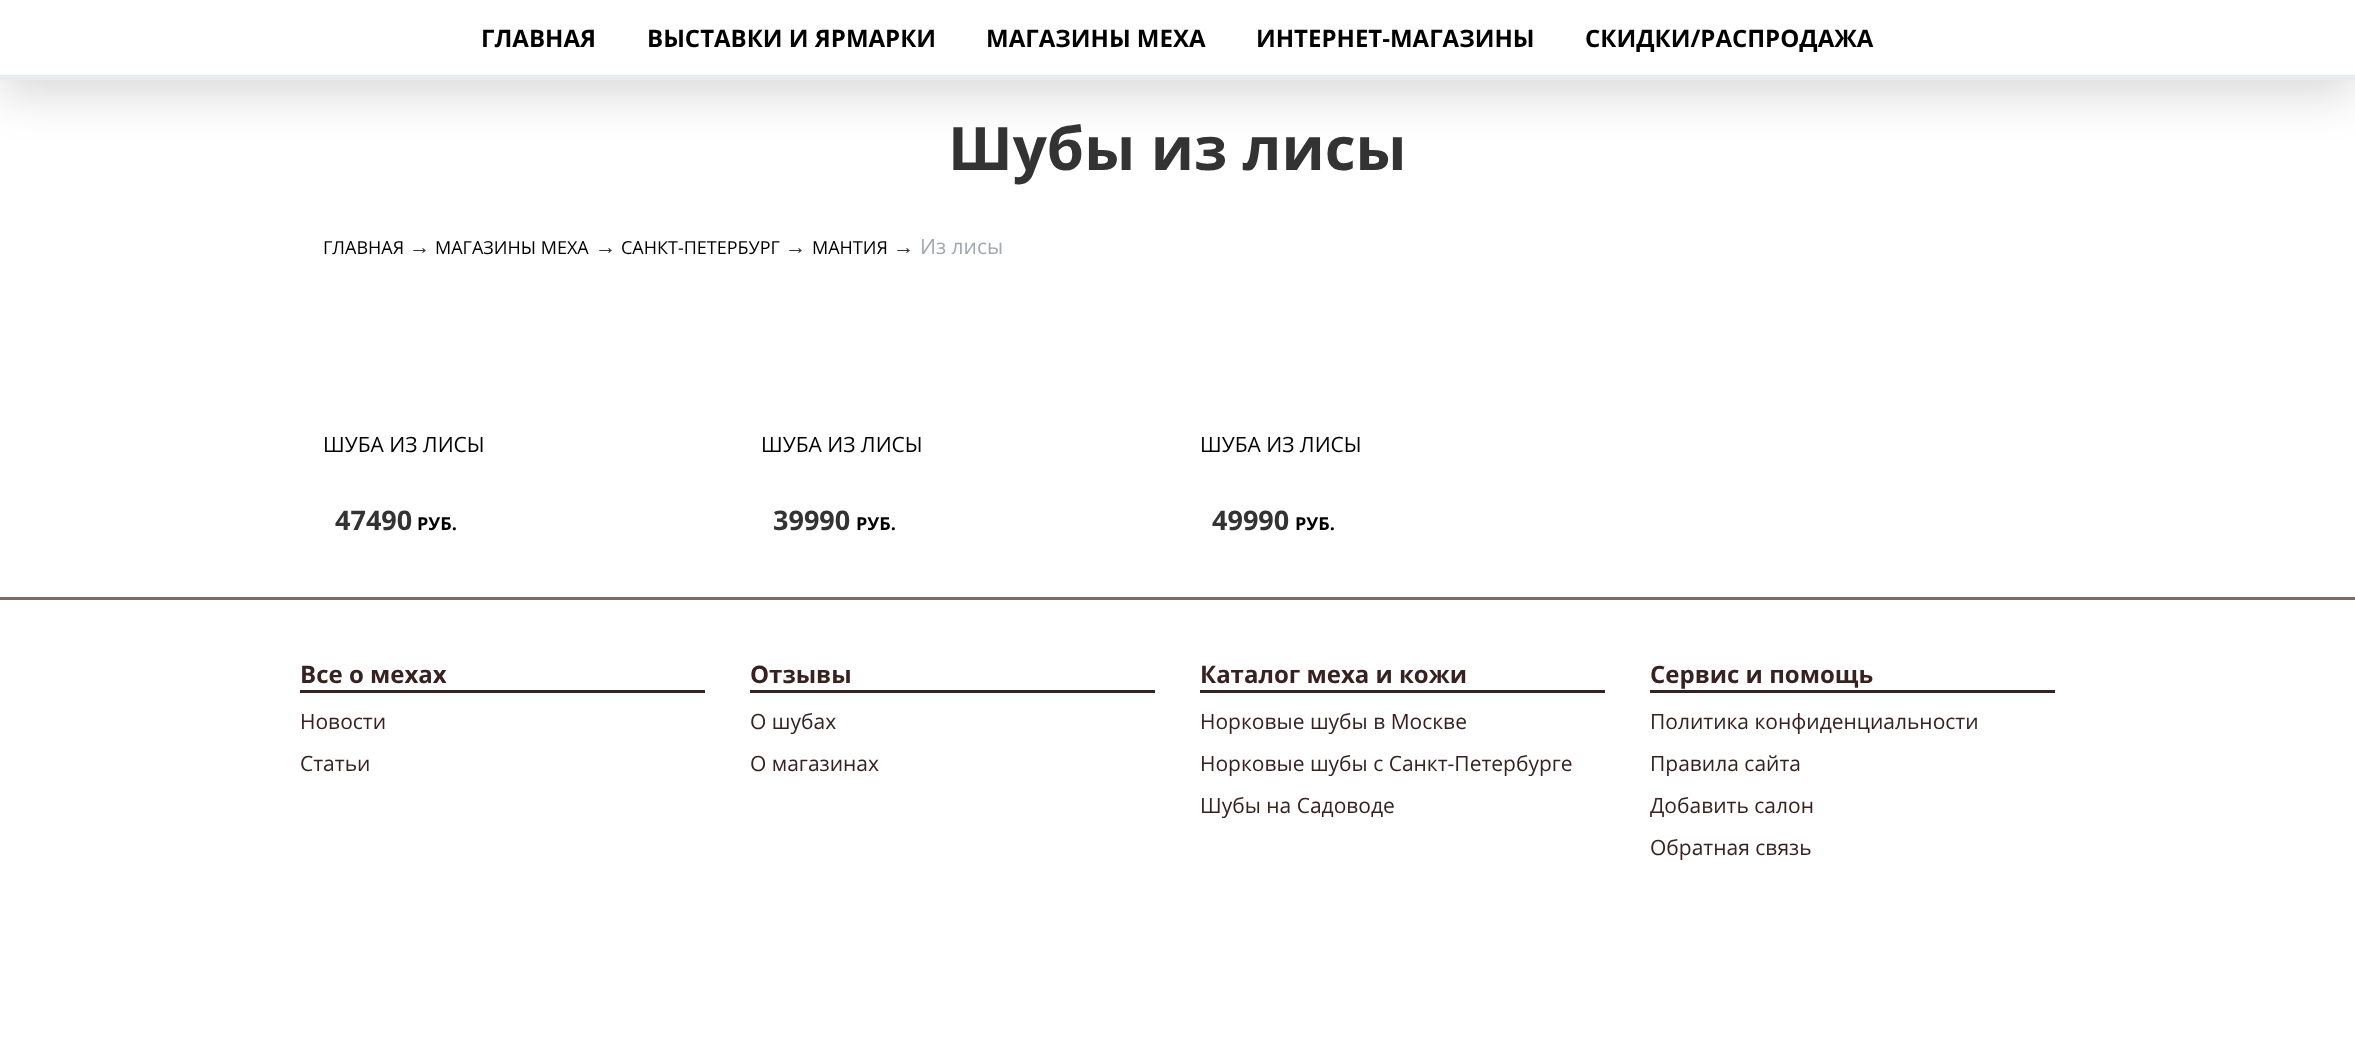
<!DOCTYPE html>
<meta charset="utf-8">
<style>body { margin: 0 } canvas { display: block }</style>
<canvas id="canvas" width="2355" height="1050"></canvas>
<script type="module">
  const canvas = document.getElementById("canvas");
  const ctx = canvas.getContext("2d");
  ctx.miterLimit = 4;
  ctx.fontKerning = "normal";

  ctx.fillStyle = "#ffffff";
  ctx.fillRect(0, 0, 2355, 1050);
  ctx.fillStyle = "rgba(0, 0, 0, 0.15)";
  ctx.filter = "blur(22.5px)";
  ctx.beginPath();
  ctx.rect(0, 15, 2355, 80);
  ctx.fill();
  ctx.filter = "none";
  ctx.fillStyle = "#ffffff";
  ctx.fillRect(0, 0, 2355, 75);
  ctx.fillStyle = "#eaebec";
  ctx.fillRect(0, 75, 2355, 5);
  ctx.font = "bold 24px Open Sans";
  ctx.fillStyle = "#000000";
  ctx.fillText("ГЛАВНАЯ", 481, 47);
  ctx.fillText("ВЫСТАВКИ И ЯРМАРКИ", 647, 47);
  ctx.fillText("МАГАЗИНЫ МЕХА", 986, 47);
  ctx.fillText("ИНТЕРНЕТ-МАГАЗИНЫ", 1256, 47);
  ctx.fillText("СКИДКИ/РАСПРОДАЖА", 1585, 47);
  ctx.font = "bold 60px Open Sans";
  ctx.fillStyle = "#333333";
  ctx.fillText("Шубы из лисы", 948, 170);
  ctx.font = "18px Open Sans";
  ctx.fillStyle = "#000000";
  ctx.fillText("ГЛАВНАЯ", 323, 254);
  ctx.font = "21px Liberation Sans";
  ctx.fillStyle = "#333333";
  ctx.fillText("→", 409, 254);
  ctx.font = "18px Open Sans";
  ctx.fillStyle = "#000000";
  ctx.fillText("МАГАЗИНЫ МЕХА", 435, 254);
  ctx.font = "21px Liberation Sans";
  ctx.fillStyle = "#333333";
  ctx.fillText("→", 595, 254);
  ctx.font = "18px Open Sans";
  ctx.fillStyle = "#000000";
  ctx.fillText("САНКТ-ПЕТЕРБУРГ", 621, 254);
  ctx.font = "21px Liberation Sans";
  ctx.fillStyle = "#333333";
  ctx.fillText("→", 785, 254);
  ctx.font = "18px Open Sans";
  ctx.fillStyle = "#000000";
  ctx.fillText("МАНТИЯ", 812, 254);
  ctx.font = "21px Liberation Sans";
  ctx.fillStyle = "#333333";
  ctx.fillText("→", 893, 254);
  ctx.font = "21px Open Sans";
  ctx.fillStyle = "#a1a9ae";
  ctx.fillText("Из лисы", 920, 254);
  ctx.fillStyle = "#000000";
  ctx.fillText("ШУБА ИЗ ЛИСЫ", 323, 452);
  ctx.font = "bold 27px Open Sans";
  ctx.fillStyle = "#333333";
  ctx.fillText("47490", 335, 530);
  ctx.font = "bold 18px Open Sans";
  ctx.fillStyle = "#000000";
  ctx.fillText("РУБ.", 417, 530);
  ctx.font = "21px Open Sans";
  ctx.fillText("ШУБА ИЗ ЛИСЫ", 761, 452);
  ctx.font = "bold 27px Open Sans";
  ctx.fillStyle = "#333333";
  ctx.fillText("39990", 773, 530);
  ctx.font = "bold 18px Open Sans";
  ctx.fillStyle = "#000000";
  ctx.fillText("РУБ.", 856, 530);
  ctx.font = "21px Open Sans";
  ctx.fillText("ШУБА ИЗ ЛИСЫ", 1200, 452);
  ctx.font = "bold 27px Open Sans";
  ctx.fillStyle = "#333333";
  ctx.fillText("49990", 1212, 530);
  ctx.font = "bold 18px Open Sans";
  ctx.fillStyle = "#000000";
  ctx.fillText("РУБ.", 1295, 530);
  ctx.fillStyle = "#7a6b6a";
  ctx.fillRect(0, 597, 2355, 3);
  ctx.fillStyle = "#382220";
  ctx.fillRect(300, 690, 405, 3);
  ctx.font = "bold 24px Open Sans";
  ctx.fillText("Все о мехах", 300, 683);
  ctx.font = "21px Open Sans";
  ctx.fillText("Новости", 300, 729);
  ctx.fillText("Cтатьи", 300, 771);
  ctx.fillRect(750, 690, 405, 3);
  ctx.font = "bold 24px Open Sans";
  ctx.fillText("Отзывы", 750, 683);
  ctx.font = "21px Open Sans";
  ctx.fillText("О шубах", 750, 729);
  ctx.fillText("О магазинах", 750, 771);
  ctx.fillRect(1200, 690, 405, 3);
  ctx.font = "bold 24px Open Sans";
  ctx.fillText("Каталог меха и кожи", 1200, 683);
  ctx.font = "21px Open Sans";
  ctx.fillText("Норковые шубы в Москве", 1200, 729);
  ctx.fillText("Норковые шубы с Санкт-Петербурге", 1200, 771);
  ctx.fillText("Шубы на Садоводе", 1200, 813);
  ctx.fillRect(1650, 690, 405, 3);
  ctx.font = "bold 24px Open Sans";
  ctx.fillText("Сервис и помощь", 1650, 683);
  ctx.font = "21px Open Sans";
  ctx.fillText("Политика конфиденциальности", 1650, 729);
  ctx.fillText("Правила сайта", 1650, 771);
  ctx.fillText("Добавить салон", 1650, 813);
  ctx.fillText("Обратная связь", 1650, 855);
</script>
